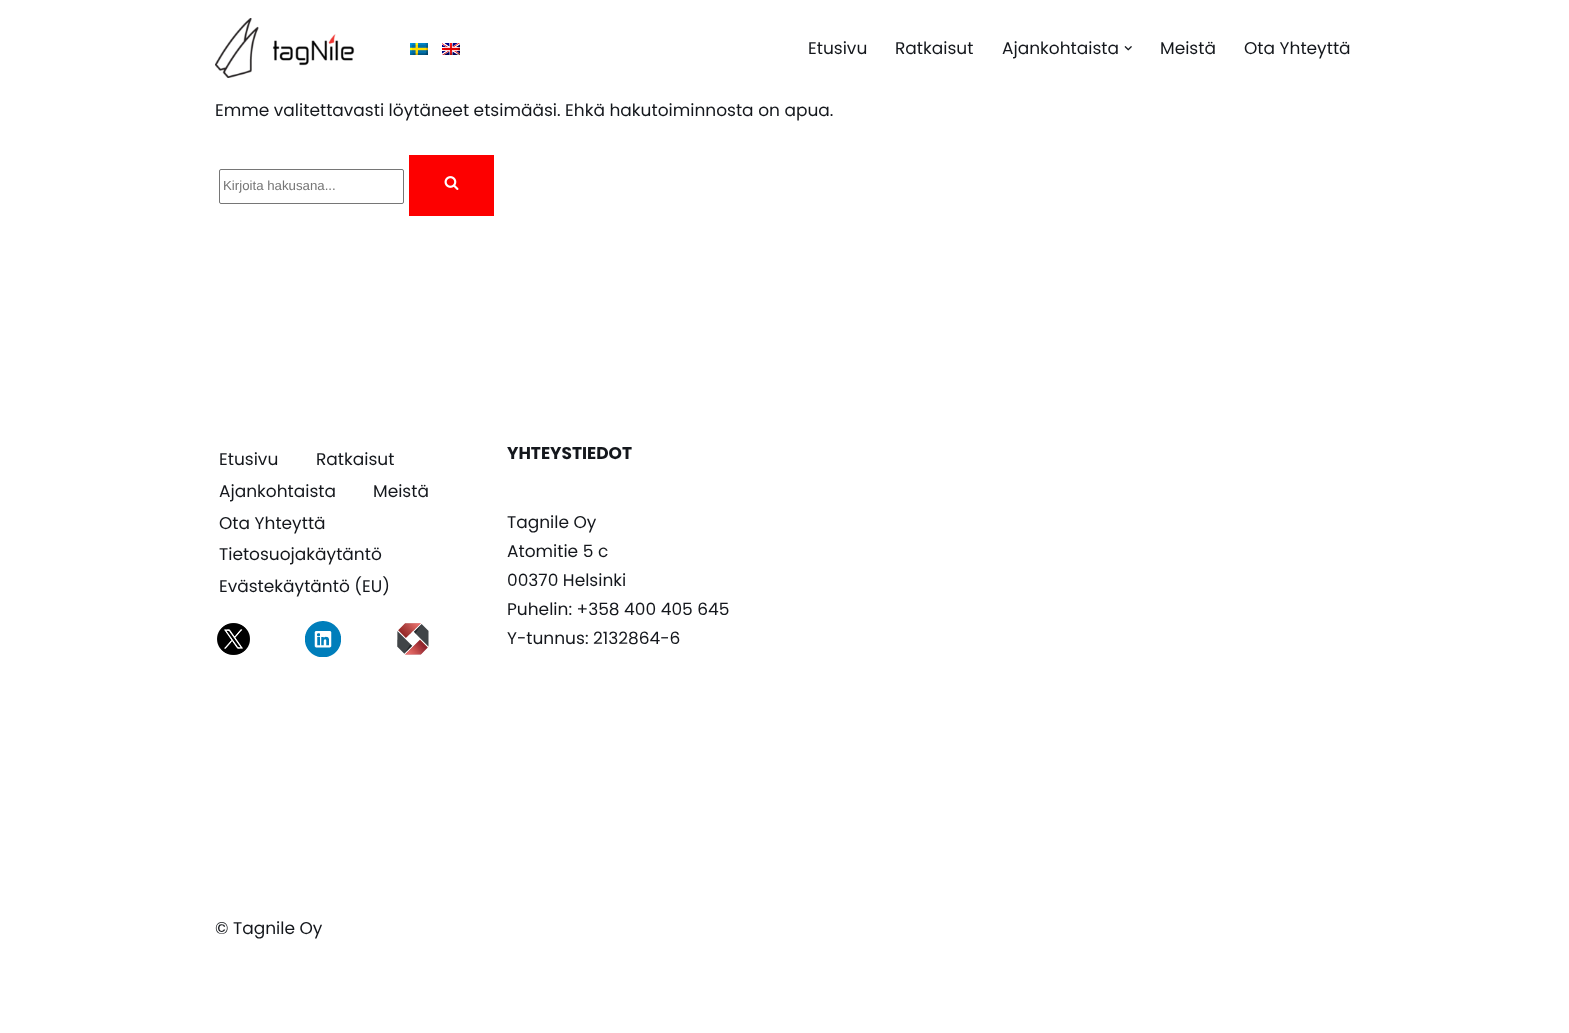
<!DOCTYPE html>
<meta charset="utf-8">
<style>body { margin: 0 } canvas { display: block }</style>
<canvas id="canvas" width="1569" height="1033"></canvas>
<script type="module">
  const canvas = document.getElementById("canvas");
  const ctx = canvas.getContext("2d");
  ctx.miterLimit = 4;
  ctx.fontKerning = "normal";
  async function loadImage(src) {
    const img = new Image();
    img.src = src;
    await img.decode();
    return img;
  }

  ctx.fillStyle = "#ffffff";
  ctx.fillRect(0, 0, 1569, 1033);
  ctx.drawImage(await loadImage("img1.png"), 215, 18, 140, 60);
  ctx.drawImage(await loadImage("img2.png"), 410, 43, 18, 12);
  ctx.drawImage(await loadImage("img3.png"), 442, 43, 18, 12);
  ctx.font = "17px Poppins";
  ctx.fillStyle = "#14171c";
  ctx.fillText("Etusivu", 808, 54);
  ctx.fillText("Ratkaisut", 895, 54);
  ctx.fillText("Ajankohtaista", 1002, 54);
  ctx.drawImage(await loadImage("img4.png"), 1124, 46, 8, 5);
  ctx.fillText("Meistä", 1160, 54);
  ctx.fillText("Ota Yhteyttä", 1244, 54);
  ctx.fillText("Emme valitettavasti löytäneet etsimääsi. Ehkä hakutoiminnosta on apua.", 215, 116);
  ctx.beginPath();
  ctx.roundRect(219.5, 169.5, 184, 34, 1.5);
  ctx.strokeStyle = "#767676";
  ctx.stroke();
  ctx.font = "13.25px Liberation Sans";
  ctx.fillStyle = "#757575";
  ctx.fillText("Kirjoita hakusana...", 223, 190);
  ctx.fillStyle = "#fd0000";
  ctx.fillRect(409, 155, 85, 61);
  ctx.drawImage(await loadImage("img5.png"), 444, 176, 15, 14);
  ctx.font = "17px Poppins";
  ctx.fillStyle = "#14171c";
  ctx.fillText("Etusivu", 219, 465);
  ctx.fillText("Ratkaisut", 316, 465);
  ctx.fillText("Ajankohtaista", 219, 497);
  ctx.fillText("Meistä", 373, 497);
  ctx.fillText("Ota Yhteyttä", 219, 529);
  ctx.fillText("Tietosuojakäytäntö", 219, 560);
  ctx.fillText("Evästekäytäntö (EU)", 219, 592);
  ctx.drawImage(await loadImage("img6.png"), 217, 623, 33, 32);
  ctx.drawImage(await loadImage("img7.png"), 305, 621, 36, 36);
  ctx.drawImage(await loadImage("img8.png"), 397, 623, 32, 32);
  ctx.font = "bold 17px Poppins";
  ctx.fillText("YHTEYSTIEDOT", 507, 459);
  ctx.font = "17px Poppins";
  ctx.fillText("Tagnile Oy", 507, 528);
  ctx.fillText("Atomitie 5 c", 507, 557);
  ctx.fillText("00370 Helsinki", 507, 586);
  ctx.fillText("Puhelin: +358 400 405 645", 507, 615);
  ctx.fillText("Y-tunnus: 2132864-6", 507, 644);
  ctx.fillText("© Tagnile Oy", 215, 934);
</script>
